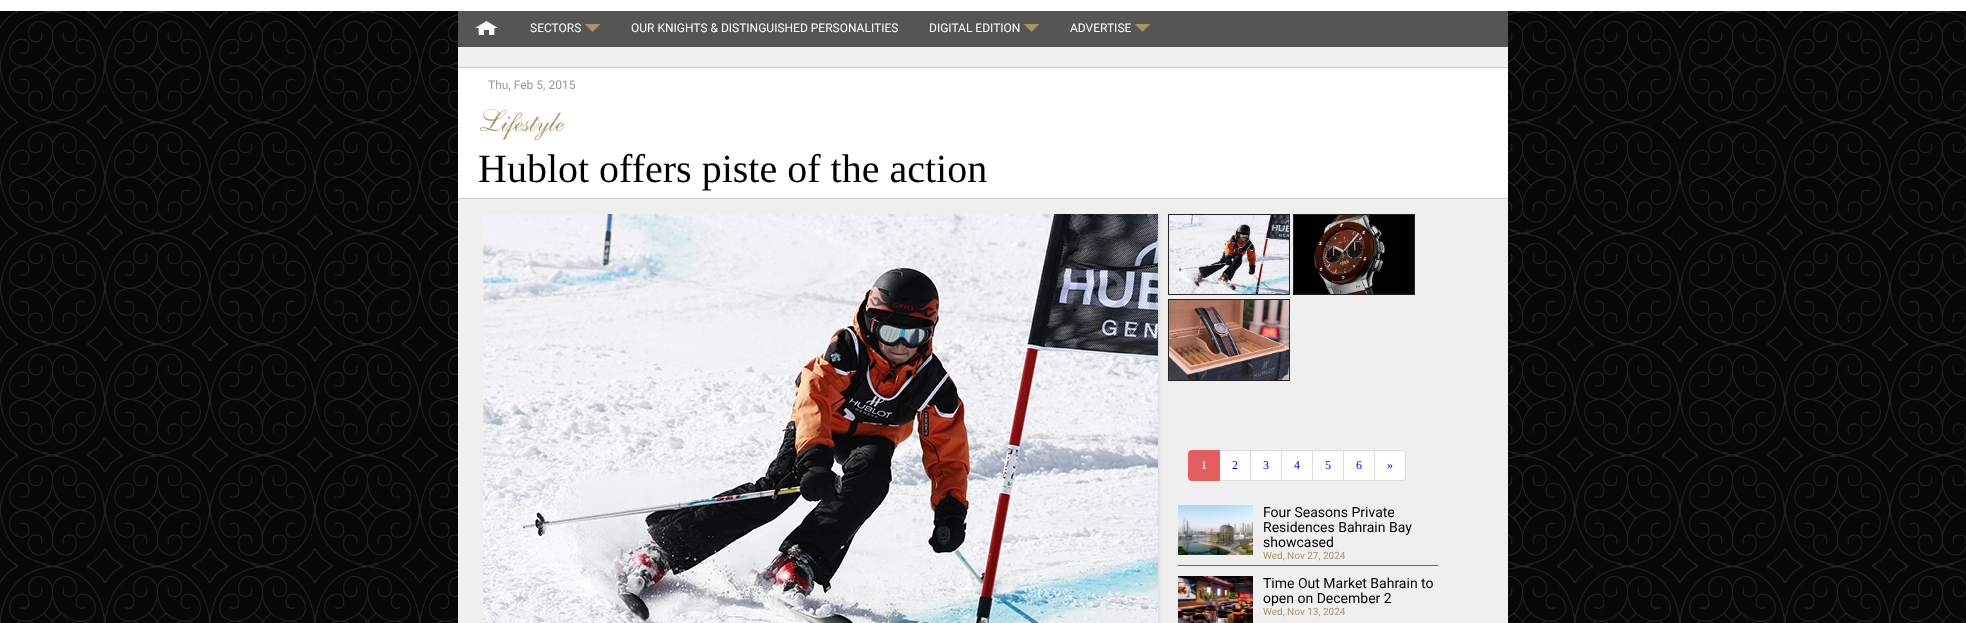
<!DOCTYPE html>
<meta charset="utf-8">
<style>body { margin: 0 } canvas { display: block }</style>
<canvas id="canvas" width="1966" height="623"></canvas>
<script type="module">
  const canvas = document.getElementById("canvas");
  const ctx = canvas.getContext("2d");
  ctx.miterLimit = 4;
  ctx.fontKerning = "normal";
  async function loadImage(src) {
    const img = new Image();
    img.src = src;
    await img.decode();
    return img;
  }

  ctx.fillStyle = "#ffffff";
  ctx.fillRect(0, 0, 1966, 623);
  ctx.drawImage(await loadImage("img1.png"), 0, 11, 1966, 612);
  ctx.fillStyle = "#555555";
  ctx.fillRect(458, 11, 1050, 36);
  ctx.drawImage(await loadImage("img2.png"), 475, 21, 23, 14);
  ctx.font = "12px Roboto";
  ctx.fillStyle = "#ffffff";
  ctx.fillText("SECTORS", 530, 32);
  ctx.drawImage(await loadImage("img3.png"), 584, 24, 17, 8);
  ctx.fillText("OUR KNIGHTS & DISTINGUISHED PERSONALITIES", 631, 32);
  ctx.fillText("DIGITAL EDITION", 929, 32);
  ctx.drawImage(await loadImage("img3.png"), 1023, 24, 17, 8);
  ctx.fillText("ADVERTISE", 1070, 32);
  ctx.drawImage(await loadImage("img3.png"), 1134, 24, 17, 8);
  ctx.fillStyle = "#efefef";
  ctx.fillRect(458, 47, 1050, 576);
  ctx.fillStyle = "#ffffff";
  ctx.fillRect(458, 68, 1050, 130);
  ctx.fillStyle = "#cccccc";
  ctx.fillRect(458, 67, 1050, 1);
  ctx.fillRect(458, 198, 1050, 1);
  ctx.fillStyle = "#999999";
  ctx.fillText("Thu, Feb 5, 2015", 488, 89);
  ctx.font = "italic 30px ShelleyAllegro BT";
  ctx.fillStyle = "#ad9264";
  ctx.fillText("Lifestyle", 478, 131);
  ctx.font = "40px Liberation Serif";
  ctx.fillStyle = "#000000";
  ctx.fillText("Hublot offers piste of the action", 478, 182);
  ctx.save();
  ctx.beginPath();
  ctx.rect(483, 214, 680, 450);
  ctx.clip();
  ctx.fillStyle = "#cccccc";
  ctx.filter = "blur(2.5px)";
  ctx.beginPath();
  ctx.rect(478, 214, 680, 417);
  ctx.fill();
  ctx.filter = "none";
  ctx.restore();
  ctx.drawImage(await loadImage("img4.png"), 483, 214, 675, 409);
  ctx.strokeStyle = "#222222";
  ctx.strokeRect(1168.5, 214.5, 121, 80);
  ctx.strokeRect(1293.5, 214.5, 121, 80);
  ctx.drawImage(await loadImage("img5.png"), 1169, 215, 120, 79);
  ctx.drawImage(await loadImage("img6.png"), 1294, 215, 120, 79);
  ctx.strokeRect(1168.5, 299.5, 121, 81);
  ctx.drawImage(await loadImage("img7.png"), 1169, 300, 120, 80);
  ctx.fillStyle = "#ffffff";
  ctx.beginPath();
  ctx.rect(1219.5, 450.5, 31, 30);
  ctx.fill();
  ctx.strokeStyle = "#dddddd";
  ctx.stroke();
  ctx.fillStyle = "#e35e5e";
  ctx.beginPath();
  ctx.roundRect(1188.5, 450.5, 31, 30, [3.5, 0, 0, 3.5]);
  ctx.fill();
  ctx.strokeStyle = "#e35e5e";
  ctx.stroke();
  ctx.font = "12px Liberation Serif";
  ctx.fillStyle = "#ffffff";
  ctx.fillText("1", 1201, 469);
  ctx.fillStyle = "#0000ee";
  ctx.fillText("2", 1232, 469);
  ctx.fillStyle = "#ffffff";
  ctx.beginPath();
  ctx.rect(1250.5, 450.5, 31, 30);
  ctx.fill();
  ctx.strokeStyle = "#dddddd";
  ctx.stroke();
  ctx.fillStyle = "#0000ee";
  ctx.fillText("3", 1263, 469);
  ctx.fillStyle = "#ffffff";
  ctx.beginPath();
  ctx.rect(1281.5, 450.5, 31, 30);
  ctx.fill();
  ctx.stroke();
  ctx.fillStyle = "#0000ee";
  ctx.fillText("4", 1294, 469);
  ctx.fillStyle = "#ffffff";
  ctx.beginPath();
  ctx.rect(1312.5, 450.5, 31, 30);
  ctx.fill();
  ctx.stroke();
  ctx.fillStyle = "#0000ee";
  ctx.fillText("5", 1325, 469);
  ctx.fillStyle = "#ffffff";
  ctx.beginPath();
  ctx.rect(1343.5, 450.5, 31, 30);
  ctx.fill();
  ctx.stroke();
  ctx.fillStyle = "#0000ee";
  ctx.fillText("6", 1356, 469);
  ctx.fillStyle = "#ffffff";
  ctx.beginPath();
  ctx.roundRect(1374.5, 450.5, 31, 30, [0, 3.5, 3.5, 0]);
  ctx.fill();
  ctx.stroke();
  ctx.fillStyle = "#0000ee";
  ctx.fillText("»", 1387, 469);
  ctx.fillStyle = "#666666";
  ctx.fillRect(1178, 565, 260, 1);
  ctx.drawImage(await loadImage("img8.png"), 1178, 505, 75, 50);
  ctx.font = "14px Roboto";
  ctx.fillStyle = "#000000";
  ctx.fillText("Four Seasons Private", 1263, 517);
  ctx.fillText("Residences Bahrain Bay", 1263, 532);
  ctx.fillText("showcased", 1263, 547);
  ctx.font = "10px Roboto";
  ctx.fillStyle = "#ad9264";
  ctx.fillText("Wed, Nov 27, 2024", 1263, 559);
  ctx.drawImage(await loadImage("img9.png"), 1178, 576, 75, 47);
  ctx.font = "14px Roboto";
  ctx.fillStyle = "#000000";
  ctx.fillText("Time Out Market Bahrain to", 1263, 588);
  ctx.fillText("open on December 2", 1263, 603);
  ctx.font = "10px Roboto";
  ctx.fillStyle = "#ad9264";
  ctx.fillText("Wed, Nov 13, 2024", 1263, 615);
</script>
